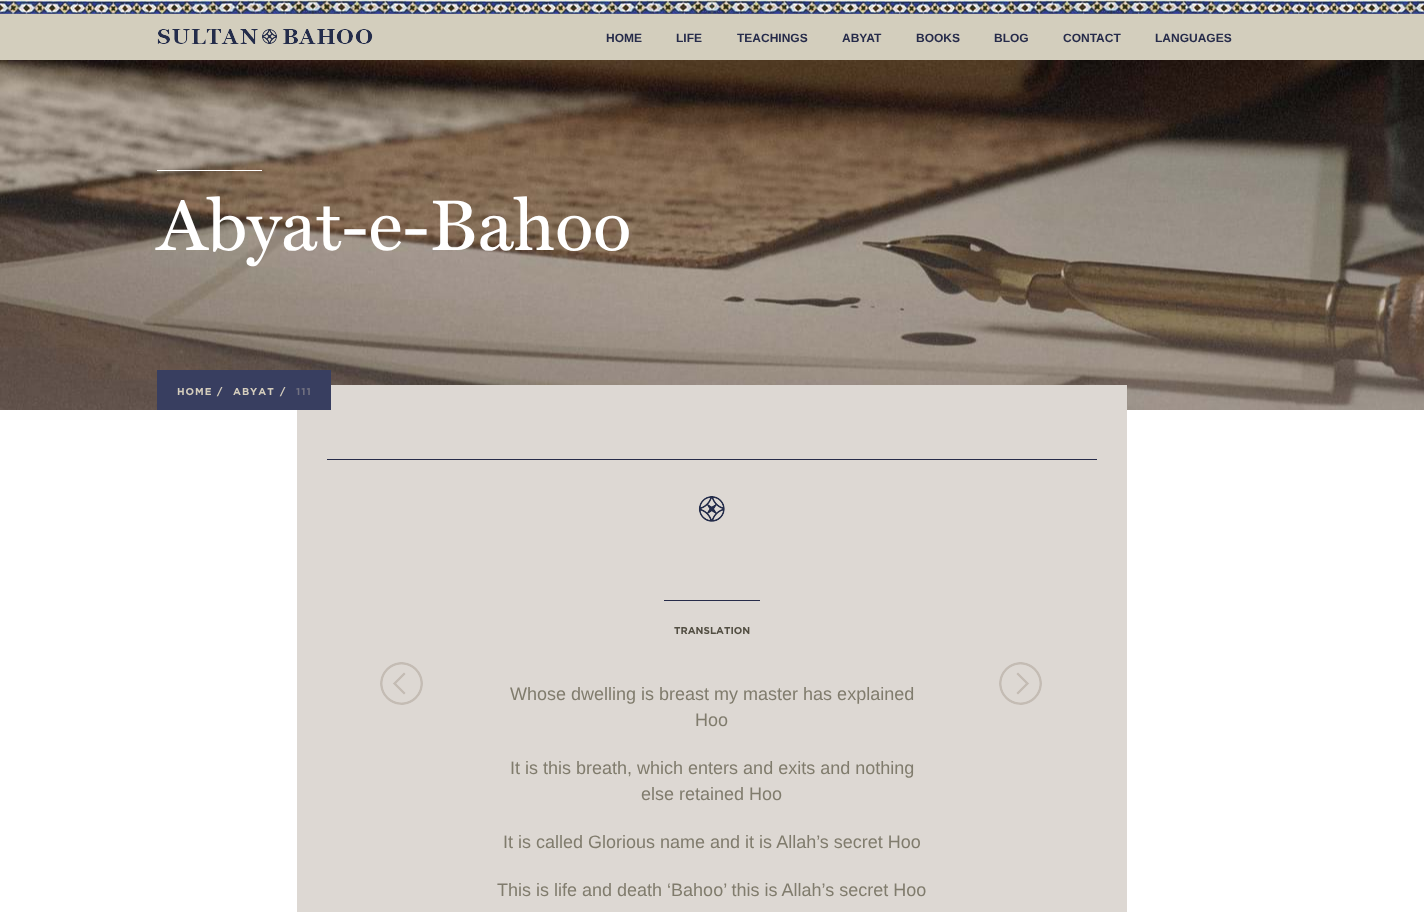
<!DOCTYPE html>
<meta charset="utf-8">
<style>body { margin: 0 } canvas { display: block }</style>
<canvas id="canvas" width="1424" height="912"></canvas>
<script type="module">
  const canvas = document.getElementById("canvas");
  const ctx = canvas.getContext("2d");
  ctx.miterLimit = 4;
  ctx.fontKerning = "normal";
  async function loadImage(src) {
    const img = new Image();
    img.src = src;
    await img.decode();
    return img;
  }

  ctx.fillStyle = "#ffffff";
  ctx.fillRect(0, 0, 1424, 912);
  ctx.fillStyle = "#d3cebd";
  ctx.fillRect(0, 0, 1424, 60);
  ctx.drawImage(await loadImage("img1.png"), 0, 0, 1424, 14);
  ctx.drawImage(await loadImage("img2.png"), 157, 29, 216, 15);
  ctx.font = "bold 12px Liberation Sans";
  ctx.fillStyle = "#262b4a";
  ctx.fillText("HOME", 606, 42);
  ctx.fillText("LIFE", 676, 42);
  ctx.fillText("TEACHINGS", 737, 42);
  ctx.fillText("ABYAT", 842, 42);
  ctx.fillText("BOOKS", 916, 42);
  ctx.fillText("BLOG", 994, 42);
  ctx.fillText("CONTACT", 1063, 42);
  ctx.fillText("LANGUAGES", 1155, 42);
  ctx.drawImage(await loadImage("img3.png"), 0, 60, 1424, 350);
  ctx.fillStyle = "#ffffff";
  ctx.fillRect(157, 170, 105, 1);
  ctx.font = "500 72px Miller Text";
  ctx.fillText("Abyat-e-Bahoo", 157, 250);
  ctx.fillStyle = "#ddd8d3";
  ctx.fillRect(297, 385, 830, 527);
  ctx.fillStyle = "#383e60";
  ctx.fillRect(157, 370, 174, 40);
  ctx.letterSpacing = "1px";
  ctx.font = "bold 10px Gotham";
  ctx.fillStyle = "#d4cdbd";
  ctx.fillText("HOME", 177, 395);
  ctx.fillText("/", 217, 395);
  ctx.fillText("ABYAT", 233, 395);
  ctx.fillText("/", 280, 395);
  ctx.fillStyle = "#717180";
  ctx.fillText("111", 296, 395);
  ctx.drawImage(await loadImage("img4.png"), 380, 662, 43, 43);
  ctx.fillStyle = "#262b49";
  ctx.fillRect(327, 459, 770, 1);
  ctx.drawImage(await loadImage("img5.png"), 698, 496, 27, 26);
  ctx.fillRect(664, 600, 96, 1);
  ctx.letterSpacing = "0px";
  ctx.fillStyle = "#524e42";
  ctx.fillText("TRANSLATION", 674, 634);
  ctx.font = "18px Liberation Sans";
  ctx.fillStyle = "#807c6d";
  ctx.fillText("Whose dwelling is breast my master has explained", 510, 700);
  ctx.fillText("Hoo", 695, 726);
  ctx.fillText("It is this breath, which enters and exits and nothing", 510, 774);
  ctx.fillText("else retained Hoo", 641, 800);
  ctx.fillText("It is called Glorious name and it is Allah’s secret Hoo", 503, 848);
  ctx.fillText("This is life and death ‘Bahoo’ this is Allah’s secret Hoo", 497, 896);
  ctx.drawImage(await loadImage("img6.png"), 999, 662, 43, 43);
</script>
